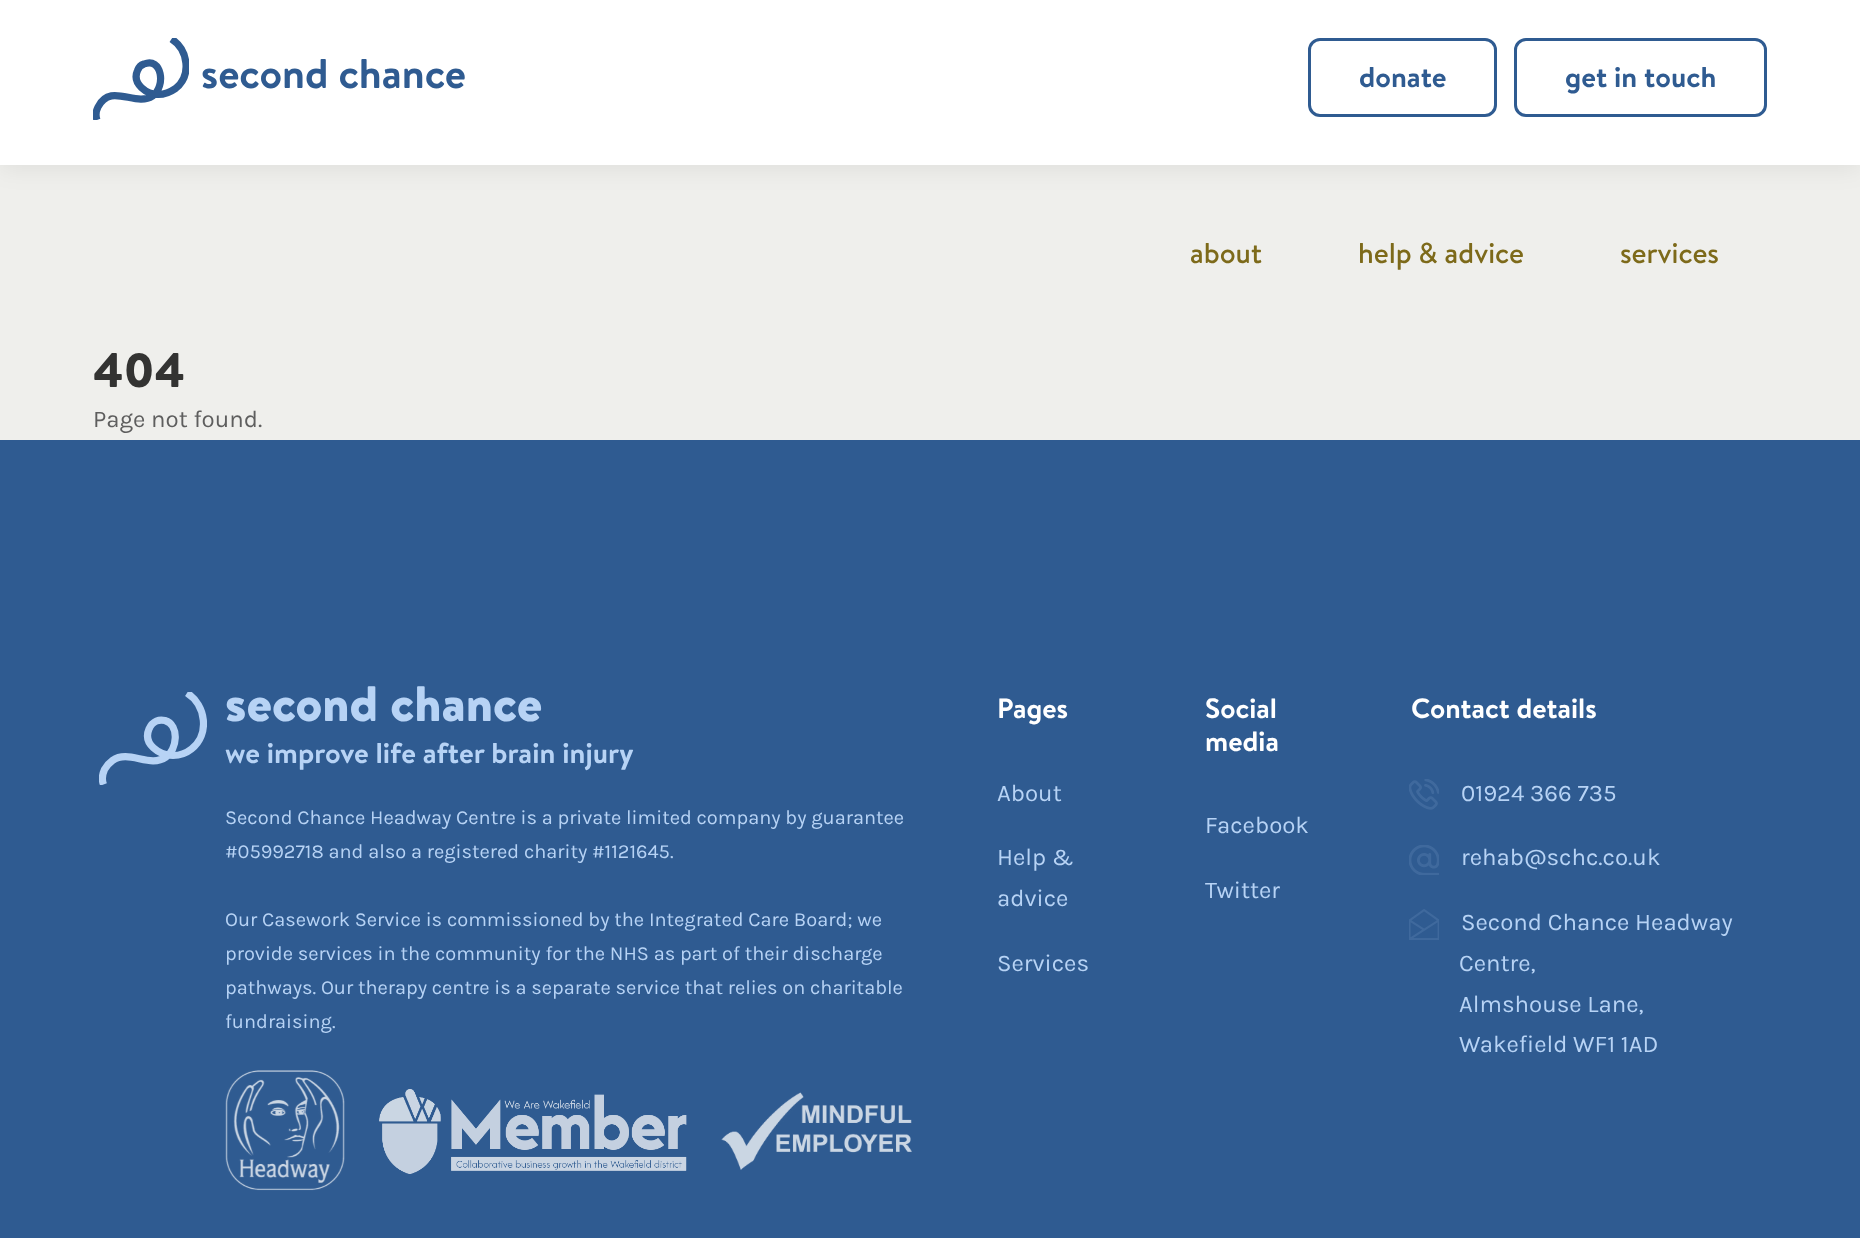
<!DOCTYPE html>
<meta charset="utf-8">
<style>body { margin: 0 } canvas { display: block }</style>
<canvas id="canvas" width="1860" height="1238"></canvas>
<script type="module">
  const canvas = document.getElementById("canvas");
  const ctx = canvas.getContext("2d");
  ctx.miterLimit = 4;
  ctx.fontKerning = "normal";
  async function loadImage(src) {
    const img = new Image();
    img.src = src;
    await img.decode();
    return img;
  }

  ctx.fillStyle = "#efefec";
  ctx.fillRect(0, 0, 1860, 1238);
  ctx.fillStyle = "rgba(0, 0, 0, 0.07)";
  ctx.filter = "blur(12px)";
  ctx.beginPath();
  ctx.rect(0, -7, 1860, 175);
  ctx.fill();
  ctx.filter = "none";
  ctx.fillStyle = "#ffffff";
  ctx.fillRect(0, 0, 1860, 165);
  ctx.save();
  ctx.beginPath();
  ctx.rect(93, 38, 96, 82);
  ctx.clip();
  ctx.beginPath();
  ctx.moveTo(171.5, 39);
  ctx.bezierCurveTo(188, 49.5, 192, 75.5, 175.5, 88.5);
  ctx.bezierCurveTo(170.5, 92, 165, 94.5, 158.5, 94.5);
  ctx.bezierCurveTo(147, 94.5, 131.5, 84, 137.5, 70.5);
  ctx.bezierCurveTo(138.5, 67.5, 141, 65, 144, 64);
  ctx.bezierCurveTo(161.5, 56.5, 166.5, 86, 152.5, 96);
  ctx.bezierCurveTo(135.5, 107.5, 110.5, 82, 98, 107);
  ctx.bezierCurveTo(96, 111, 95.5, 116, 97, 120);
  ctx.strokeStyle = "#2f5b91";
  ctx.lineWidth = 7.2;
  ctx.stroke();
  ctx.restore();
  ctx.font = "bold 41.5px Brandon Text";
  ctx.fillStyle = "#2f5b91";
  ctx.fillText("second chance", 201, 88);
  ctx.beginPath();
  ctx.roundRect(1309.5, 39.5, 186, 76, 10.5);
  ctx.strokeStyle = "#2f5b91";
  ctx.lineWidth = 3;
  ctx.stroke();
  ctx.font = "bold 28.75px Brandon Text";
  ctx.fillText("donate", 1359, 87);
  ctx.beginPath();
  ctx.roundRect(1515.5, 39.5, 250, 76, 10.5);
  ctx.stroke();
  ctx.fillText("get in touch", 1565, 87);
  ctx.font = "500 28.75px Brandon Text";
  ctx.fillStyle = "#7d6a1a";
  ctx.fillText("about", 1190, 263);
  ctx.fillText("help & advice", 1358, 263);
  ctx.fillText("services", 1620, 263);
  ctx.font = "900 48px Brandon Text";
  ctx.fillStyle = "#333332";
  ctx.fillText("404", 93, 387);
  ctx.font = "24px Karla";
  ctx.fillStyle = "#5e5e5e";
  ctx.fillText("Page not found.", 93, 427);
  ctx.fillStyle = "#2f5b91";
  ctx.fillRect(0, 440, 1860, 798);
  ctx.save();
  ctx.beginPath();
  ctx.rect(99, 692, 108, 93);
  ctx.clip();
  ctx.beginPath();
  ctx.moveTo(187, 693);
  ctx.bezierCurveTo(206, 705, 210, 734.5, 191.5, 749);
  ctx.bezierCurveTo(186.5, 753, 180, 755.5, 173, 755.5);
  ctx.bezierCurveTo(159.5, 755.5, 142.5, 744, 149, 729);
  ctx.bezierCurveTo(150.5, 725.5, 153, 722.5, 156.5, 721);
  ctx.bezierCurveTo(159, 720, 162, 720, 165, 720.5);
  ctx.bezierCurveTo(180, 725, 177, 750, 166, 757);
  ctx.bezierCurveTo(149.5, 768.5, 129, 749, 112.5, 760.5);
  ctx.bezierCurveTo(109, 763, 106.5, 766, 104.5, 769.5);
  ctx.bezierCurveTo(102.5, 774, 101.5, 779.5, 103.5, 784.5);
  ctx.strokeStyle = "#b7d3f5";
  ctx.lineWidth = 7.2;
  ctx.stroke();
  ctx.restore();
  ctx.font = "900 49.75px Brandon Text";
  ctx.fillStyle = "#b7d3f5";
  ctx.fillText("second chance", 225, 721);
  ctx.font = "bold 28.75px Brandon Text";
  ctx.fillText("we improve life after brain injury", 225, 763);
  ctx.font = "20px Karla";
  ctx.fillText("Second Chance Headway Centre is a private limited company by guarantee", 225, 824);
  ctx.fillText("#05992718 and also a registered charity #1121645.", 225, 858);
  ctx.fillText("Our Casework Service is commissioned by the Integrated Care Board; we", 225, 926);
  ctx.fillText("provide services in the community for the NHS as part of their discharge", 225, 960);
  ctx.fillText("pathways. Our therapy centre is a separate service that relies on charitable", 225, 994);
  ctx.fillText("fundraising.", 225, 1028);
  ctx.drawImage(await loadImage("img1.png"), 225, 1070, 120, 121);
  ctx.drawImage(await loadImage("img2.png"), 379, 1089, 308, 85);
  ctx.drawImage(await loadImage("img3.png"), 721, 1092, 191, 78);
  ctx.font = "bold 28px Brandon Text";
  ctx.fillStyle = "#ffffff";
  ctx.fillText("Pages", 997, 718);
  ctx.font = "24px Karla";
  ctx.fillStyle = "#b7d3f5";
  ctx.fillText("About", 997, 801);
  ctx.fillText("Help &", 997, 865);
  ctx.fillText("advice", 997, 906);
  ctx.fillText("Services", 997, 971);
  ctx.font = "bold 28px Brandon Text";
  ctx.fillStyle = "#ffffff";
  ctx.fillText("Social", 1205, 718);
  ctx.fillText("media", 1205, 751);
  ctx.font = "24px Karla";
  ctx.fillStyle = "#b7d3f5";
  ctx.fillText("Facebook", 1205, 833);
  ctx.fillText("Twitter", 1205, 898);
  ctx.font = "bold 28px Brandon Text";
  ctx.fillStyle = "#ffffff";
  ctx.fillText("Contact details", 1411, 718);
  ctx.drawImage(await loadImage("img4.png"), 1409, 779, 30, 31);
  ctx.font = "24px Karla";
  ctx.fillStyle = "#b7d3f5";
  ctx.fillText("01924 366 735", 1461, 801);
  ctx.drawImage(await loadImage("img5.png"), 1409, 845, 30, 30);
  ctx.fillText("rehab@schc.co.uk", 1461, 865);
  ctx.drawImage(await loadImage("img6.png"), 1409, 909, 30, 31);
  ctx.fillText("Second Chance Headway", 1461, 930);
  ctx.fillText("Centre,", 1459, 971);
  ctx.fillText("Almshouse Lane,", 1459, 1012);
  ctx.fillText("Wakefield WF1 1AD", 1459, 1052);
</script>
